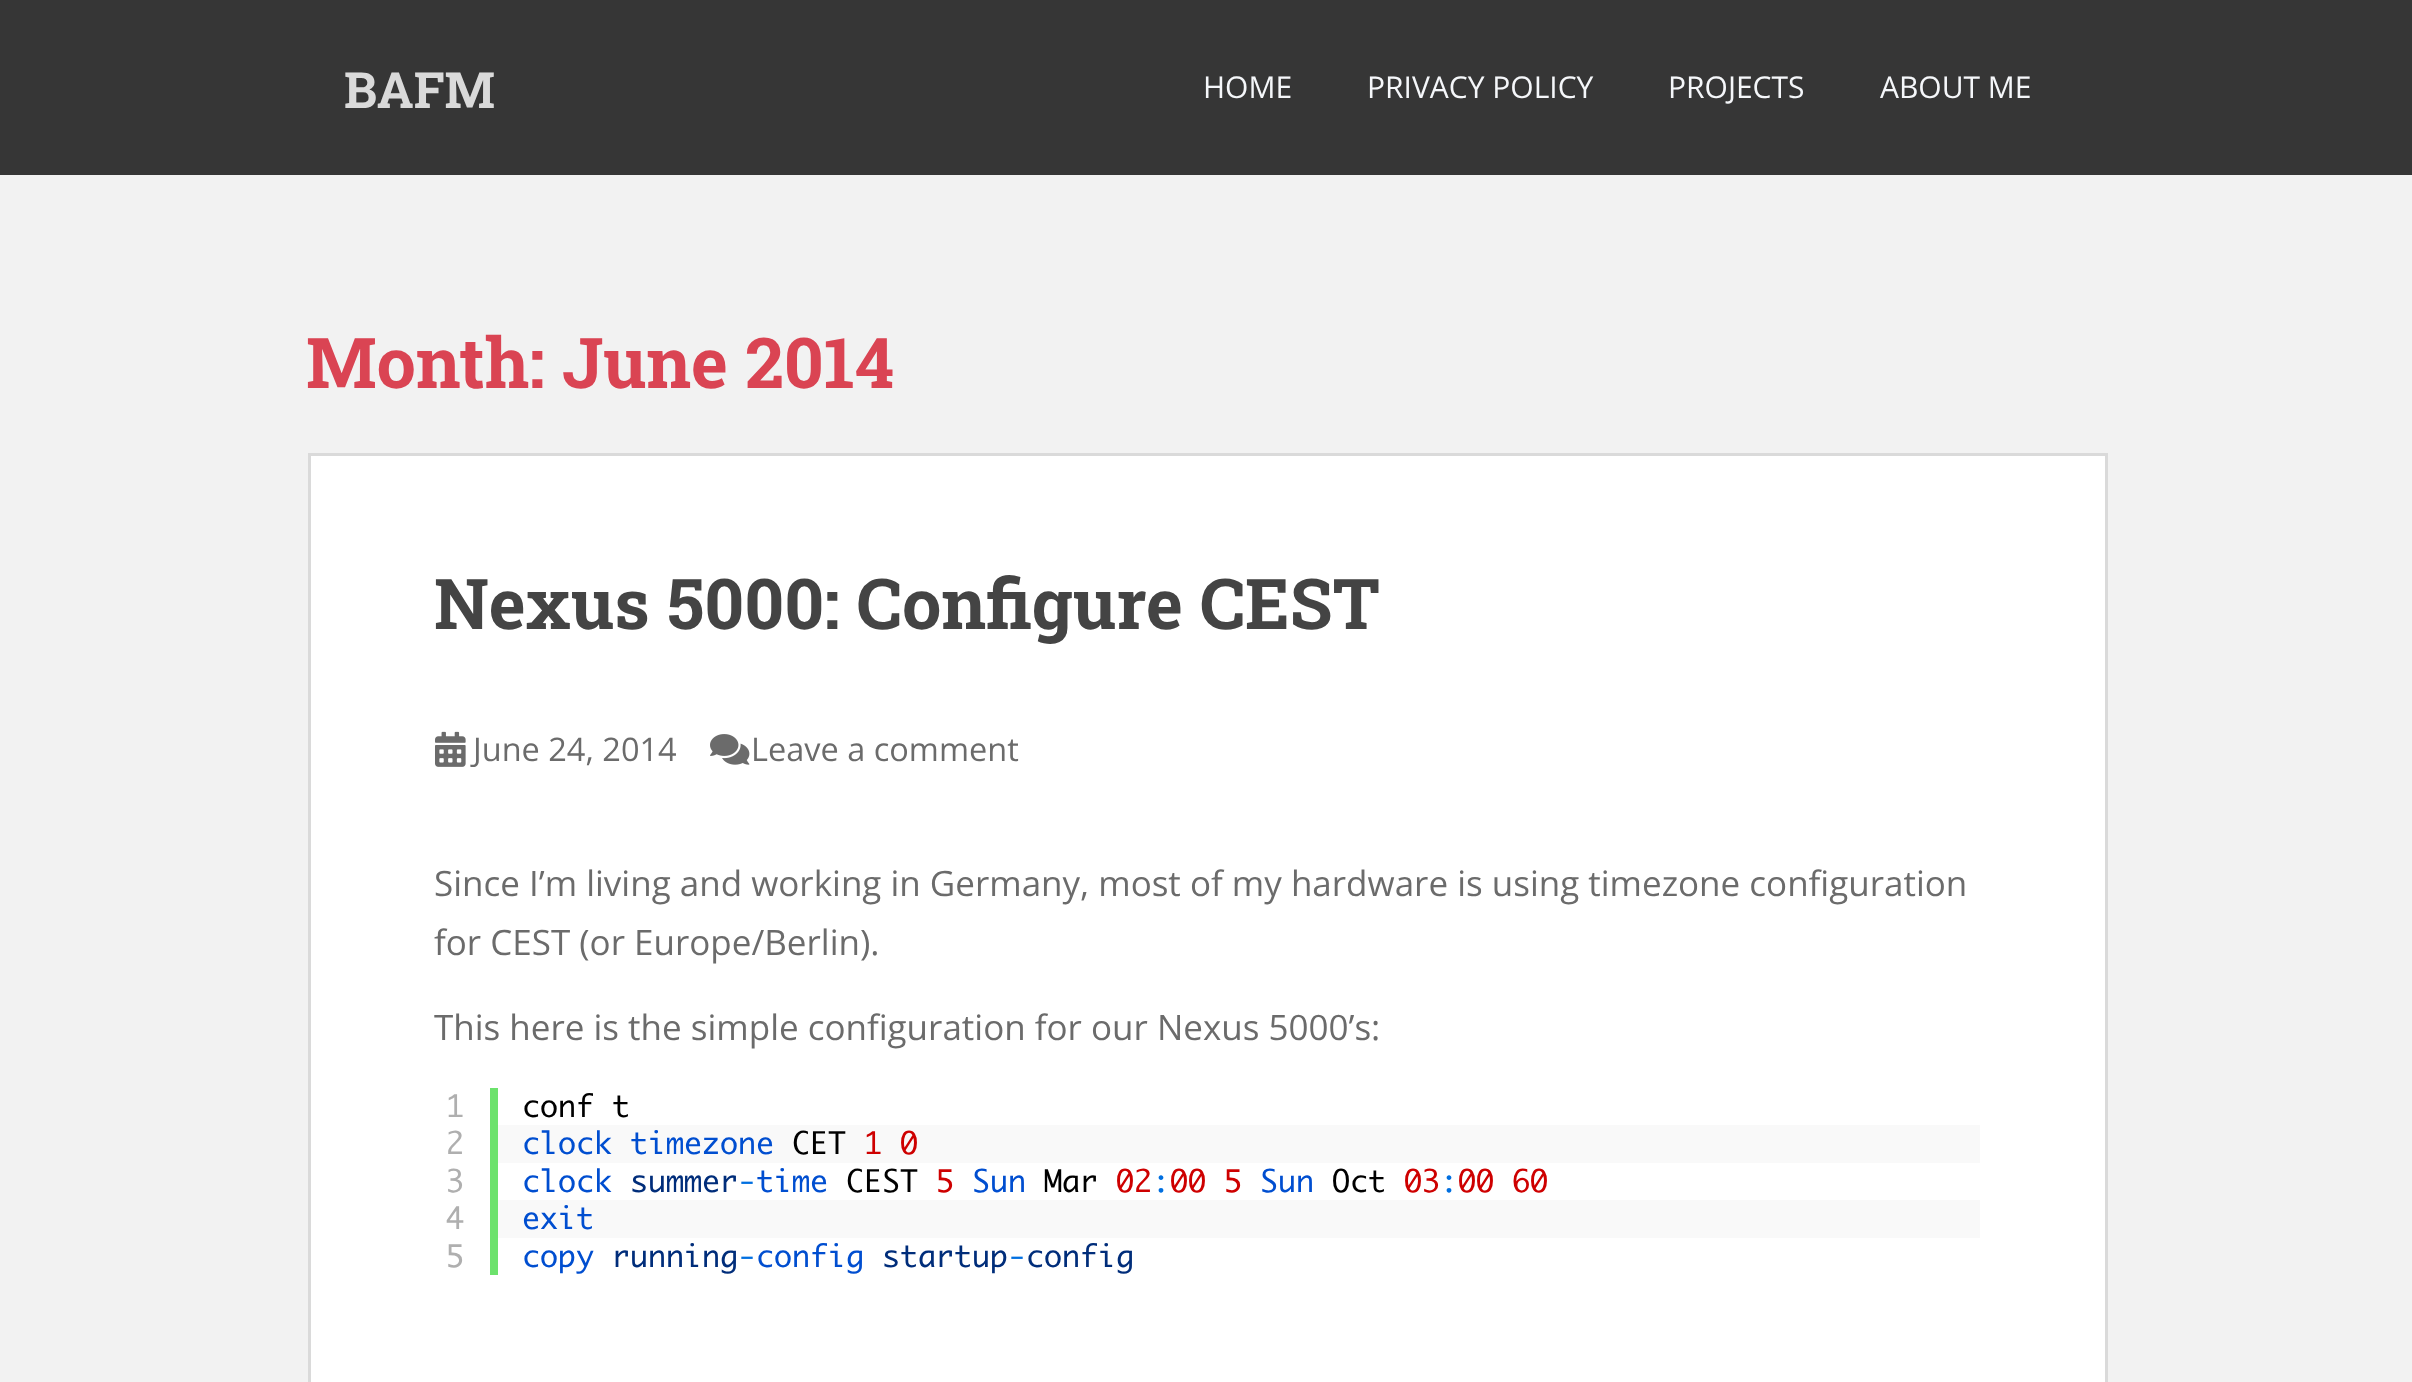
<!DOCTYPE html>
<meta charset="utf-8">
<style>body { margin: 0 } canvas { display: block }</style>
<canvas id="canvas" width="2412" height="1382"></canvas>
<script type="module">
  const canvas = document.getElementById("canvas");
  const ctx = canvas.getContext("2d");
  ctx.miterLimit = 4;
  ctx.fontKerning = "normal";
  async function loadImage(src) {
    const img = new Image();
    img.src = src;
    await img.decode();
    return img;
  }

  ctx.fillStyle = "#f2f2f2";
  ctx.fillRect(0, 0, 2412, 1382);
  ctx.fillStyle = "#363636";
  ctx.fillRect(0, 0, 2412, 175);
  ctx.font = "bold 50px Roboto Slab";
  ctx.fillStyle = "#dadada";
  ctx.fillText("BAFM", 344, 108);
  ctx.font = "30px Open Sans";
  ctx.fillStyle = "#f5f7fa";
  ctx.fillText("HOME", 1203, 98);
  ctx.fillText("PRIVACY POLICY", 1367, 98);
  ctx.fillText("PROJECTS", 1668, 98);
  ctx.fillText("ABOUT ME", 1880, 98);
  ctx.font = "bold 70px Roboto Slab";
  ctx.fillStyle = "#da4453";
  ctx.fillText("Month: June 2014", 306, 388);
  ctx.fillStyle = "#ffffff";
  ctx.beginPath();
  ctx.rect(309.5, 454.5, 1797, 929);
  ctx.fill();
  ctx.strokeStyle = "#dadada";
  ctx.lineWidth = 3;
  ctx.stroke();
  ctx.fillStyle = "#444444";
  ctx.fillText("Nexus 5000: Configure CEST", 434, 629);
  ctx.drawImage(await loadImage("img1.png"), 435, 731, 31, 36);
  ctx.font = "32.5px Open Sans";
  ctx.fillStyle = "#6b6b6b";
  ctx.fillText("June 24, 2014", 473, 761);
  ctx.drawImage(await loadImage("img2.png"), 710, 734, 40, 31);
  ctx.fillText("Leave a comment", 751, 761);
  ctx.font = "35px Open Sans";
  ctx.fillText("Since I’m living and working in Germany, most of my hardware is using timezone configuration", 434, 896);
  ctx.fillText("for CEST (or Europe/Berlin).", 434, 955);
  ctx.fillText("This here is the simple configuration for our Nexus 5000’s:", 434, 1040);
  ctx.fillStyle = "#6ce26c";
  ctx.fillRect(490, 1088, 8, 187);
  ctx.font = "30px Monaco";
  ctx.fillStyle = "#afafaf";
  ctx.fillText("1", 446, 1117);
  ctx.fillText("2", 446, 1154);
  ctx.fillText("3", 446, 1192);
  ctx.fillText("4", 446, 1229);
  ctx.fillText("5", 446, 1267);
  ctx.fillStyle = "#000000";
  ctx.fillText("conf t", 522, 1117);
  ctx.fillStyle = "#f9f9f9";
  ctx.fillRect(498, 1125, 1482, 38);
  ctx.fillStyle = "#004ed0";
  ctx.fillText("clock timezone", 522, 1154);
  ctx.fillStyle = "#000000";
  ctx.fillText("CET", 792, 1154);
  ctx.fillStyle = "#ce0000";
  ctx.fillText("1 0", 864, 1154);
  ctx.fillStyle = "#004ed0";
  ctx.fillText("clock", 522, 1192);
  ctx.fillStyle = "#002d7a";
  ctx.fillText("summer", 630, 1192);
  ctx.fillStyle = "#004ed0";
  ctx.fillText("time", 756, 1192);
  ctx.fillStyle = "#000000";
  ctx.fillText("CEST", 846, 1192);
  ctx.fillStyle = "#ce0000";
  ctx.fillText("5", 936, 1192);
  ctx.fillStyle = "#004ed0";
  ctx.fillText("Sun", 972, 1192);
  ctx.fillStyle = "#000000";
  ctx.fillText("Mar", 1044, 1192);
  ctx.fillStyle = "#ce0000";
  ctx.fillText("02 00 5", 1116, 1192);
  ctx.fillStyle = "#004ed0";
  ctx.fillText("Sun", 1260, 1192);
  ctx.fillStyle = "#000000";
  ctx.fillText("Oct", 1332, 1192);
  ctx.fillStyle = "#ce0000";
  ctx.fillText("03 00 60", 1404, 1192);
  ctx.fillStyle = "#006fe0";
  ctx.fillText("-", 738, 1192);
  ctx.fillText(":", 1152, 1192);
  ctx.fillText(":", 1440, 1192);
  ctx.fillStyle = "#f9f9f9";
  ctx.fillRect(498, 1200, 1482, 38);
  ctx.fillStyle = "#004ed0";
  ctx.fillText("exit", 522, 1229);
  ctx.fillText("copy", 522, 1267);
  ctx.fillStyle = "#002d7a";
  ctx.fillText("running", 612, 1267);
  ctx.fillStyle = "#006fe0";
  ctx.fillText("-", 738, 1267);
  ctx.fillStyle = "#004ed0";
  ctx.fillText("config", 756, 1267);
  ctx.fillStyle = "#002d7a";
  ctx.fillText("startup config", 882, 1267);
  ctx.fillStyle = "#006fe0";
  ctx.fillText("-", 1008, 1267);
</script>
